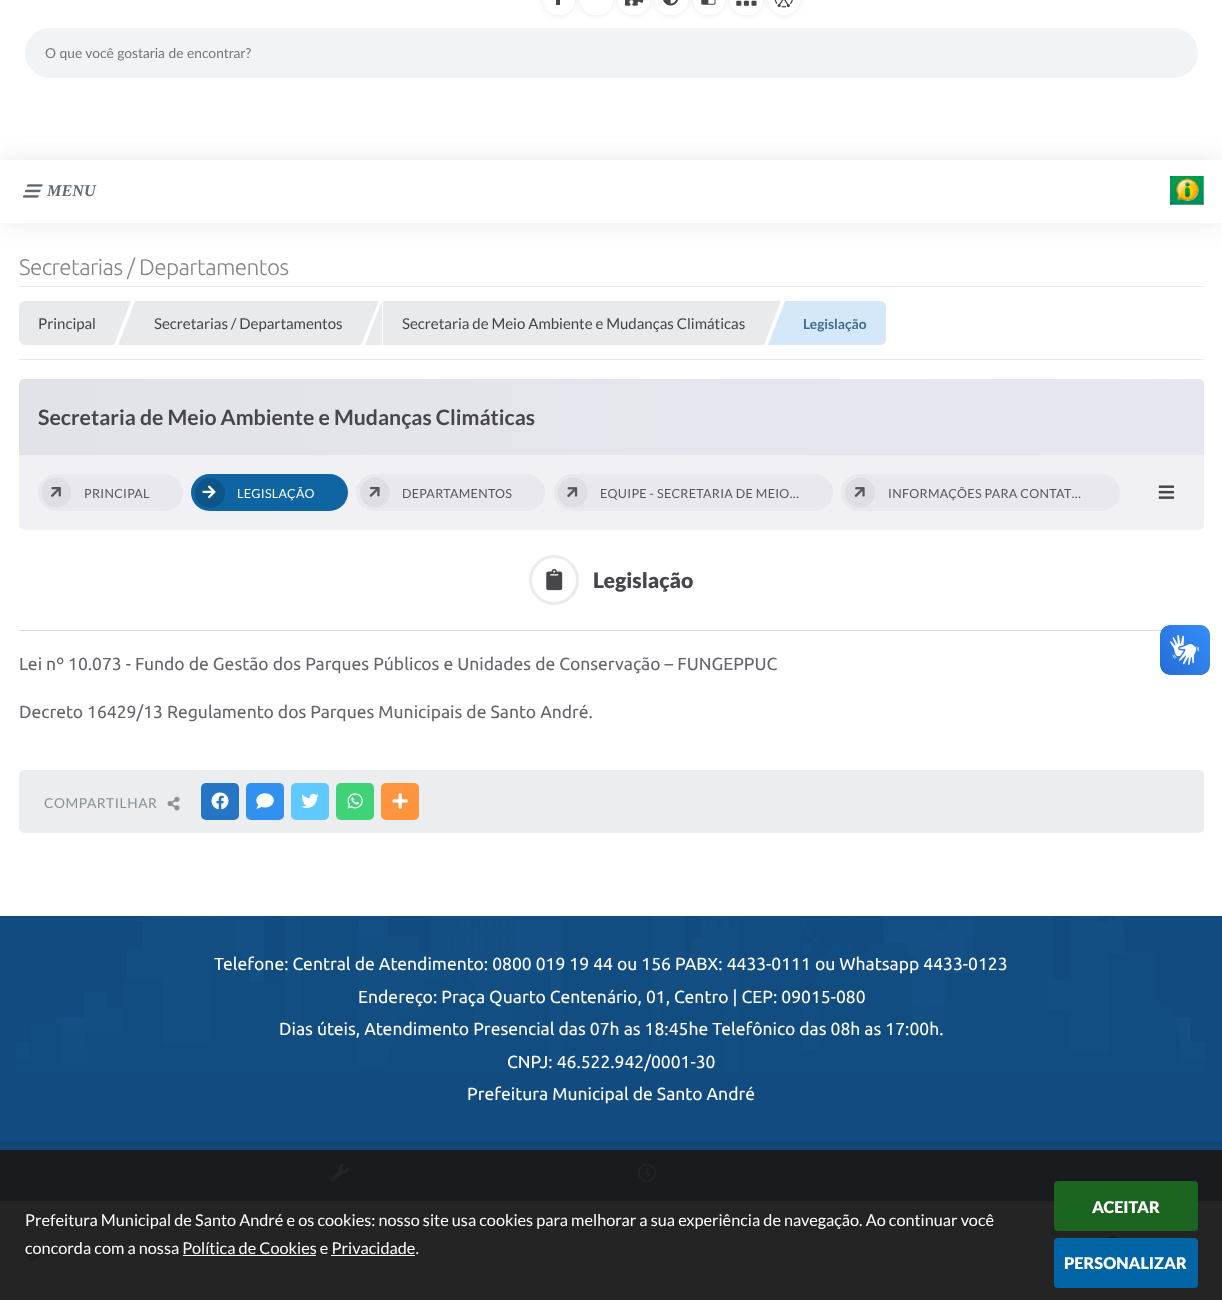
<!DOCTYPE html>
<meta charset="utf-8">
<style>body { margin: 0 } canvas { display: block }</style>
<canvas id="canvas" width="1222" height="1300"></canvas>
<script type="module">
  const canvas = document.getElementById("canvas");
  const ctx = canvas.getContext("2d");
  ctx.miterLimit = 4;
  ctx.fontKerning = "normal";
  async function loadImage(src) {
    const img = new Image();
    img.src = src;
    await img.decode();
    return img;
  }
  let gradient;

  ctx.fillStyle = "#124776";
  ctx.fillRect(0, 0, 1222, 1300);
  ctx.fillStyle = "#ffffff";
  ctx.fillRect(0, 0, 1222, 160);
  ctx.fillStyle = "rgba(0, 0, 0, 0.1)";
  ctx.filter = "blur(3px)";
  ctx.beginPath();
  ctx.roundRect(543, -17, 32, 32, 16);
  ctx.fill();
  ctx.filter = "none";
  ctx.fillStyle = "#ffffff";
  ctx.beginPath();
  ctx.roundRect(543, -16, 32, 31, 16);
  ctx.fill();
  ctx.fillStyle = "#47474b";
  ctx.fillRect(556, 0, 4, 5);
  ctx.fillStyle = "rgba(0, 0, 0, 0.1)";
  ctx.filter = "blur(3px)";
  ctx.beginPath();
  ctx.roundRect(580, -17, 33, 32, 16);
  ctx.fill();
  ctx.filter = "none";
  ctx.fillStyle = "#ffffff";
  ctx.beginPath();
  ctx.roundRect(580, -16, 33, 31, 16);
  ctx.fill();
  ctx.fillStyle = "rgba(0, 0, 0, 0.1)";
  ctx.filter = "blur(3px)";
  ctx.beginPath();
  ctx.roundRect(618, -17, 32, 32, 16);
  ctx.fill();
  ctx.filter = "none";
  ctx.fillStyle = "#ffffff";
  ctx.beginPath();
  ctx.roundRect(618, -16, 32, 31, 16);
  ctx.fill();
  ctx.drawImage(await loadImage("img1.png"), 625, 0, 19, 6);
  ctx.fillStyle = "rgba(0, 0, 0, 0.1)";
  ctx.filter = "blur(3px)";
  ctx.beginPath();
  ctx.roundRect(655, -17, 33, 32, 16);
  ctx.fill();
  ctx.filter = "none";
  ctx.fillStyle = "#ffffff";
  ctx.beginPath();
  ctx.roundRect(655, -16, 33, 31, 16);
  ctx.fill();
  ctx.drawImage(await loadImage("img2.png"), 663, 0, 16, 6);
  ctx.fillStyle = "rgba(0, 0, 0, 0.1)";
  ctx.filter = "blur(3px)";
  ctx.beginPath();
  ctx.roundRect(693, -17, 32, 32, 16);
  ctx.fill();
  ctx.filter = "none";
  ctx.fillStyle = "#ffffff";
  ctx.beginPath();
  ctx.roundRect(693, -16, 32, 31, 16);
  ctx.fill();
  ctx.drawImage(await loadImage("img3.png"), 701, 0, 15, 5);
  ctx.fillStyle = "rgba(0, 0, 0, 0.1)";
  ctx.filter = "blur(3px)";
  ctx.beginPath();
  ctx.roundRect(730, -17, 33, 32, 16);
  ctx.fill();
  ctx.filter = "none";
  ctx.fillStyle = "#ffffff";
  ctx.beginPath();
  ctx.roundRect(730, -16, 33, 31, 16);
  ctx.fill();
  ctx.drawImage(await loadImage("img4.png"), 736, 0, 21, 6);
  ctx.fillStyle = "rgba(0, 0, 0, 0.1)";
  ctx.filter = "blur(3px)";
  ctx.beginPath();
  ctx.roundRect(768, -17, 32, 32, 16);
  ctx.fill();
  ctx.filter = "none";
  ctx.fillStyle = "#ffffff";
  ctx.beginPath();
  ctx.roundRect(768, -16, 32, 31, 16);
  ctx.fill();
  ctx.drawImage(await loadImage("img5.png"), 774, 0, 19, 8);
  ctx.fillStyle = "#f0f4f7";
  ctx.beginPath();
  ctx.roundRect(25.5, 28.5, 1172, 49, 24.5);
  ctx.fill();
  ctx.strokeStyle = "#f0f4f7";
  ctx.stroke();
  ctx.font = "13.75px Lato";
  ctx.fillStyle = "#757575";
  ctx.fillText("O que você gostaria de encontrar?", 45, 58);
  ctx.fillStyle = "#ffffff";
  ctx.fillRect(0, 223, 1222, 693);
  ctx.fillStyle = "rgba(80, 103, 135, 0.15)";
  ctx.filter = "blur(12.5px)";
  ctx.beginPath();
  ctx.rect(0, 160, 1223, 63);
  ctx.fill();
  ctx.filter = "none";
  ctx.fillStyle = "#ffffff";
  ctx.fillRect(0, 160, 1222, 63);
  ctx.drawImage(await loadImage("img6.png"), 22, 184, 21, 14);
  ctx.font = "italic bold 16.25px Liberation Serif";
  ctx.fillStyle = "#606a73";
  ctx.fillText("MENU", 47, 196);
  ctx.drawImage(await loadImage("img7.png"), 1170, 176, 34, 29);
  ctx.letterSpacing = "-0.6px";
  ctx.font = "300 22.5px Ubuntu";
  ctx.fillStyle = "#868686";
  ctx.fillText("Secretarias / Departamentos", 19, 275);
  ctx.fillStyle = "#e9e9e9";
  ctx.fillRect(19, 286, 1185, 1);
  ctx.fillRect(19, 359, 1185, 1);
  ctx.fillStyle = "#e9eaec";
  ctx.beginPath();
  ctx.roundRect(19, 301, 95, 44, [6, 0, 0, 6]);
  ctx.fill();
  ctx.letterSpacing = "0px";
  ctx.font = "15px 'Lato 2'";
  ctx.fillStyle = "#444444";
  ctx.fillText("Principal", 38, 329);
  ctx.fillStyle = "#e9eaec";
  ctx.beginPath();
  ctx.moveTo(114, 301);
  ctx.lineTo(131, 301);
  ctx.lineTo(114, 345);
  ctx.closePath();
  ctx.fill();
  ctx.fillRect(135, 301, 226, 44);
  ctx.beginPath();
  ctx.moveTo(135, 345);
  ctx.lineTo(118, 345);
  ctx.lineTo(135, 301);
  ctx.closePath();
  ctx.fill();
  ctx.fillStyle = "#444444";
  ctx.fillText("Secretarias / Departamentos", 154, 329);
  ctx.fillStyle = "#e9eaec";
  ctx.beginPath();
  ctx.moveTo(361, 301);
  ctx.lineTo(379, 301);
  ctx.lineTo(361, 345);
  ctx.closePath();
  ctx.fill();
  ctx.fillRect(383, 301, 381, 44);
  ctx.beginPath();
  ctx.moveTo(382, 345);
  ctx.lineTo(365, 345);
  ctx.lineTo(382, 301);
  ctx.closePath();
  ctx.fill();
  ctx.fillStyle = "#444444";
  ctx.fillText("Secretaria de Meio Ambiente e Mudanças Climáticas", 402, 329);
  ctx.fillStyle = "#e9eaec";
  ctx.beginPath();
  ctx.moveTo(764, 301);
  ctx.lineTo(781, 301);
  ctx.lineTo(764, 345);
  ctx.closePath();
  ctx.fill();
  ctx.fillStyle = "#d4e8f9";
  ctx.beginPath();
  ctx.roundRect(785, 301, 101, 44, [0, 6, 6, 0]);
  ctx.fill();
  ctx.beginPath();
  ctx.moveTo(785, 345);
  ctx.lineTo(768, 345);
  ctx.lineTo(785, 301);
  ctx.closePath();
  ctx.fill();
  ctx.font = "bold 13.75px Lato";
  ctx.fillStyle = "#3d6d92";
  ctx.fillText("Legislação", 803, 329);
  gradient = ctx.createLinearGradient(19, 417, 1204, 417);
  gradient.addColorStop(0, "#e2e3e9");
  gradient.addColorStop(1, "#e7e7ef");
  ctx.fillStyle = gradient;
  ctx.beginPath();
  ctx.roundRect(19, 379, 1185, 76, [5, 5, 0, 0]);
  ctx.fill();
  ctx.font = "bold 21.25px Lato";
  ctx.fillStyle = "#47474b";
  ctx.fillText("Secretaria de Meio Ambiente e Mudanças Climáticas", 38, 425);
  ctx.fillStyle = "#f0f0f5";
  ctx.beginPath();
  ctx.roundRect(19, 455, 1185, 75, [0, 0, 5, 5]);
  ctx.fill();
  ctx.fillStyle = "#e8e8ee";
  ctx.beginPath();
  ctx.roundRect(38, 474, 145, 37, 18.5);
  ctx.fill();
  ctx.fillStyle = "#dedee4";
  ctx.beginPath();
  ctx.moveTo(45.5, 482);
  ctx.bezierCurveTo(51.5, 476, 61, 476, 67, 482);
  ctx.bezierCurveTo(72.5, 488, 72.5, 497, 67, 503);
  ctx.bezierCurveTo(61, 509, 51.5, 509, 45.5, 503);
  ctx.bezierCurveTo(40, 497, 40, 488, 45.5, 482);
  ctx.closePath();
  ctx.fill();
  ctx.drawImage(await loadImage("img8.png"), 50, 487, 11, 10);
  ctx.letterSpacing = "0.3px";
  ctx.font = "12.5px 'Lato 2'";
  ctx.fillStyle = "#56565b";
  ctx.fillText("PRINCIPAL", 84, 498);
  ctx.fillStyle = "#0f65a2";
  ctx.beginPath();
  ctx.roundRect(191, 474, 157, 37, 18.5);
  ctx.fill();
  ctx.fillStyle = "#0d5588";
  ctx.beginPath();
  ctx.arc(210, 493, 15, 0, Math.PI * 2);
  ctx.fill();
  ctx.drawImage(await loadImage("img9.png"), 202, 485, 14, 14);
  ctx.fillStyle = "#ffffff";
  ctx.fillText("LEGISLAÇÃO", 237, 498);
  ctx.fillStyle = "#e8e8ee";
  ctx.beginPath();
  ctx.roundRect(356, 474, 189, 37, 18.5);
  ctx.fill();
  ctx.fillStyle = "#dedee4";
  ctx.beginPath();
  ctx.moveTo(364.5, 482);
  ctx.bezierCurveTo(370, 476, 379.5, 476, 385.5, 482);
  ctx.bezierCurveTo(391.5, 488, 391.5, 497, 385.5, 503);
  ctx.bezierCurveTo(379.5, 509, 370, 509, 364.5, 503);
  ctx.bezierCurveTo(358.5, 497, 358.5, 488, 364.5, 482);
  ctx.closePath();
  ctx.fill();
  ctx.drawImage(await loadImage("img10.png"), 369, 486, 11, 11);
  ctx.fillStyle = "#56565b";
  ctx.fillText("DEPARTAMENTOS", 402, 498);
  ctx.fillStyle = "#e8e8ee";
  ctx.beginPath();
  ctx.roundRect(554, 474, 279, 37, 18.5);
  ctx.fill();
  ctx.fillStyle = "#dedee4";
  ctx.beginPath();
  ctx.moveTo(562, 482);
  ctx.bezierCurveTo(568, 476, 577.5, 476, 583.5, 482);
  ctx.bezierCurveTo(589, 488, 589, 497, 583.5, 503);
  ctx.bezierCurveTo(577.5, 509, 568, 509, 562, 503);
  ctx.bezierCurveTo(556, 497, 556, 488, 562, 482);
  ctx.closePath();
  ctx.fill();
  ctx.drawImage(await loadImage("img11.png"), 567, 487, 11, 11);
  ctx.fillStyle = "#56565b";
  ctx.fillText("EQUIPE - SECRETARIA DE MEIO…", 600, 498);
  ctx.fillStyle = "#e8e8ee";
  ctx.beginPath();
  ctx.roundRect(841, 474, 279, 37, 18.5);
  ctx.fill();
  ctx.fillStyle = "#dedee4";
  ctx.beginPath();
  ctx.moveTo(849.5, 482);
  ctx.bezierCurveTo(855.5, 476, 865, 476, 870.5, 482);
  ctx.bezierCurveTo(876.5, 488, 876.5, 497, 870.5, 503);
  ctx.bezierCurveTo(865, 509, 855.5, 509, 849.5, 503);
  ctx.bezierCurveTo(843.5, 497, 843.5, 488, 849.5, 482);
  ctx.closePath();
  ctx.fill();
  ctx.drawImage(await loadImage("img12.png"), 854, 487, 11, 10);
  ctx.fillStyle = "#56565b";
  ctx.fillText("INFORMAÇÕES PARA CONTAT…", 888, 498);
  ctx.drawImage(await loadImage("img13.png"), 1158, 485, 17, 14);
  ctx.fillStyle = "#dddddd";
  ctx.fillRect(19, 630, 1143, 1);
  ctx.beginPath();
  ctx.arc(554, 580, 23.5, 0, Math.PI * 2);
  ctx.strokeStyle = "#eaecf1";
  ctx.lineWidth = 3;
  ctx.stroke();
  ctx.drawImage(await loadImage("img14.png"), 546, 568, 17, 23);
  ctx.letterSpacing = "0px";
  ctx.font = "900 21.25px Lato";
  ctx.fillStyle = "#47474b";
  ctx.fillText("Legislação", 593, 588);
  ctx.font = "17.5px Ubuntu";
  ctx.fillStyle = "#65656b";
  ctx.fillText("Lei nº 10.073 - Fundo de Gestão dos Parques Públicos e Unidades de Conservação – FUNGEPPUC", 19, 670);
  ctx.fillText("Decreto 16429/13 Regulamento dos Parques Municipais de Santo André.", 19, 718);
  ctx.fillStyle = "#ebedee";
  ctx.beginPath();
  ctx.roundRect(19, 770, 1185, 63, 5);
  ctx.fill();
  ctx.letterSpacing = "0.6px";
  ctx.font = "13.75px 'Lato 2'";
  ctx.fillStyle = "#869198";
  ctx.fillText("COMPARTILHAR", 44, 808);
  ctx.drawImage(await loadImage("img15.png"), 167, 796, 13, 15);
  ctx.fillStyle = "#2675c5";
  ctx.beginPath();
  ctx.roundRect(201, 783, 38, 37, 5);
  ctx.fill();
  ctx.drawImage(await loadImage("img16.png"), 211, 792, 18, 18);
  ctx.fillStyle = "#3290f0";
  ctx.beginPath();
  ctx.roundRect(246, 783, 38, 37, 5);
  ctx.fill();
  ctx.drawImage(await loadImage("img17.png"), 256, 793, 18, 16);
  ctx.fillStyle = "#60c9ff";
  ctx.beginPath();
  ctx.roundRect(291, 783, 38, 37, 5);
  ctx.fill();
  ctx.drawImage(await loadImage("img18.png"), 301, 793, 18, 15);
  ctx.fillStyle = "#40d277";
  ctx.beginPath();
  ctx.roundRect(336, 783, 38, 37, 5);
  ctx.fill();
  ctx.drawImage(await loadImage("img19.png"), 347, 793, 16, 16);
  ctx.fillStyle = "#ff943e";
  ctx.beginPath();
  ctx.roundRect(381, 783, 38, 37, 5);
  ctx.fill();
  ctx.drawImage(await loadImage("img20.png"), 392, 793, 16, 16);
  ctx.fillStyle = "#114b7f";
  ctx.fillRect(0, 916, 1222, 225);
  ctx.drawImage(await loadImage("img21.png"), 16, 916, 1190, 156);
  ctx.letterSpacing = "0px";
  ctx.font = "17.5px Ubuntu";
  ctx.fillStyle = "#ffffff";
  ctx.fillText("Telefone: Central de Atendimento: 0800 019 19 44 ou 156 PABX: 4433-0111 ou Whatsapp 4433-0123", 214, 970);
  ctx.fillText("Endereço: Praça Quarto Centenário, 01, Centro | CEP: 09015-080", 358, 1003);
  ctx.fillText("Dias úteis, Atendimento Presencial das 07h as 18:45he Telefônico das 08h as 17:00h.", 279, 1035);
  ctx.fillText("CNPJ: 46.522.942/0001-30", 507, 1068);
  ctx.fillText("Prefeitura Municipal de Santo André", 467, 1100);
  ctx.fillStyle = "#191b1e";
  ctx.fillRect(0, 1150, 1222, 51);
  ctx.drawImage(await loadImage("img22.png"), 330, 1163, 19, 20);
  ctx.drawImage(await loadImage("img23.png"), 637, 1163, 19, 19);
  ctx.fillStyle = "#242424";
  ctx.fillRect(0, 1201, 1222, 99);
  ctx.drawImage(await loadImage("img24.png"), 1110, 1235, 82, 3);
  ctx.drawImage(await loadImage("img25.png"), 25, 1246, 14, 15);
  ctx.drawImage(await loadImage("img26.png"), 1160, 625, 50, 50);
  ctx.drawImage(await loadImage("img27.png"), 1160, 625, 50, 50);
  ctx.font = "16.25px 'Lato 2'";
  ctx.fillStyle = "#ffffff";
  ctx.fillText("Prefeitura Municipal de Santo André e os cookies: nosso site usa cookies para melhorar a sua experiência de navegação. Ao continuar você", 25, 1226);
  ctx.fillText("concorda com a nossa Política de Cookies e Privacidade.", 25, 1254);
  ctx.fillRect(183, 1255, 133, 1);
  ctx.fillRect(331, 1255, 84, 1);
  ctx.fillStyle = "#1b6520";
  ctx.beginPath();
  ctx.roundRect(1054, 1181, 144, 50, 4);
  ctx.fill();
  ctx.font = "900 16.25px Lato";
  ctx.fillStyle = "#ffffff";
  ctx.fillText("ACEITAR", 1092, 1213);
  ctx.fillStyle = "#0164a4";
  ctx.beginPath();
  ctx.roundRect(1054, 1238, 144, 50, 4);
  ctx.fill();
  ctx.fillStyle = "#ffffff";
  ctx.fillText("PERSONALIZAR", 1064, 1269);
</script>
